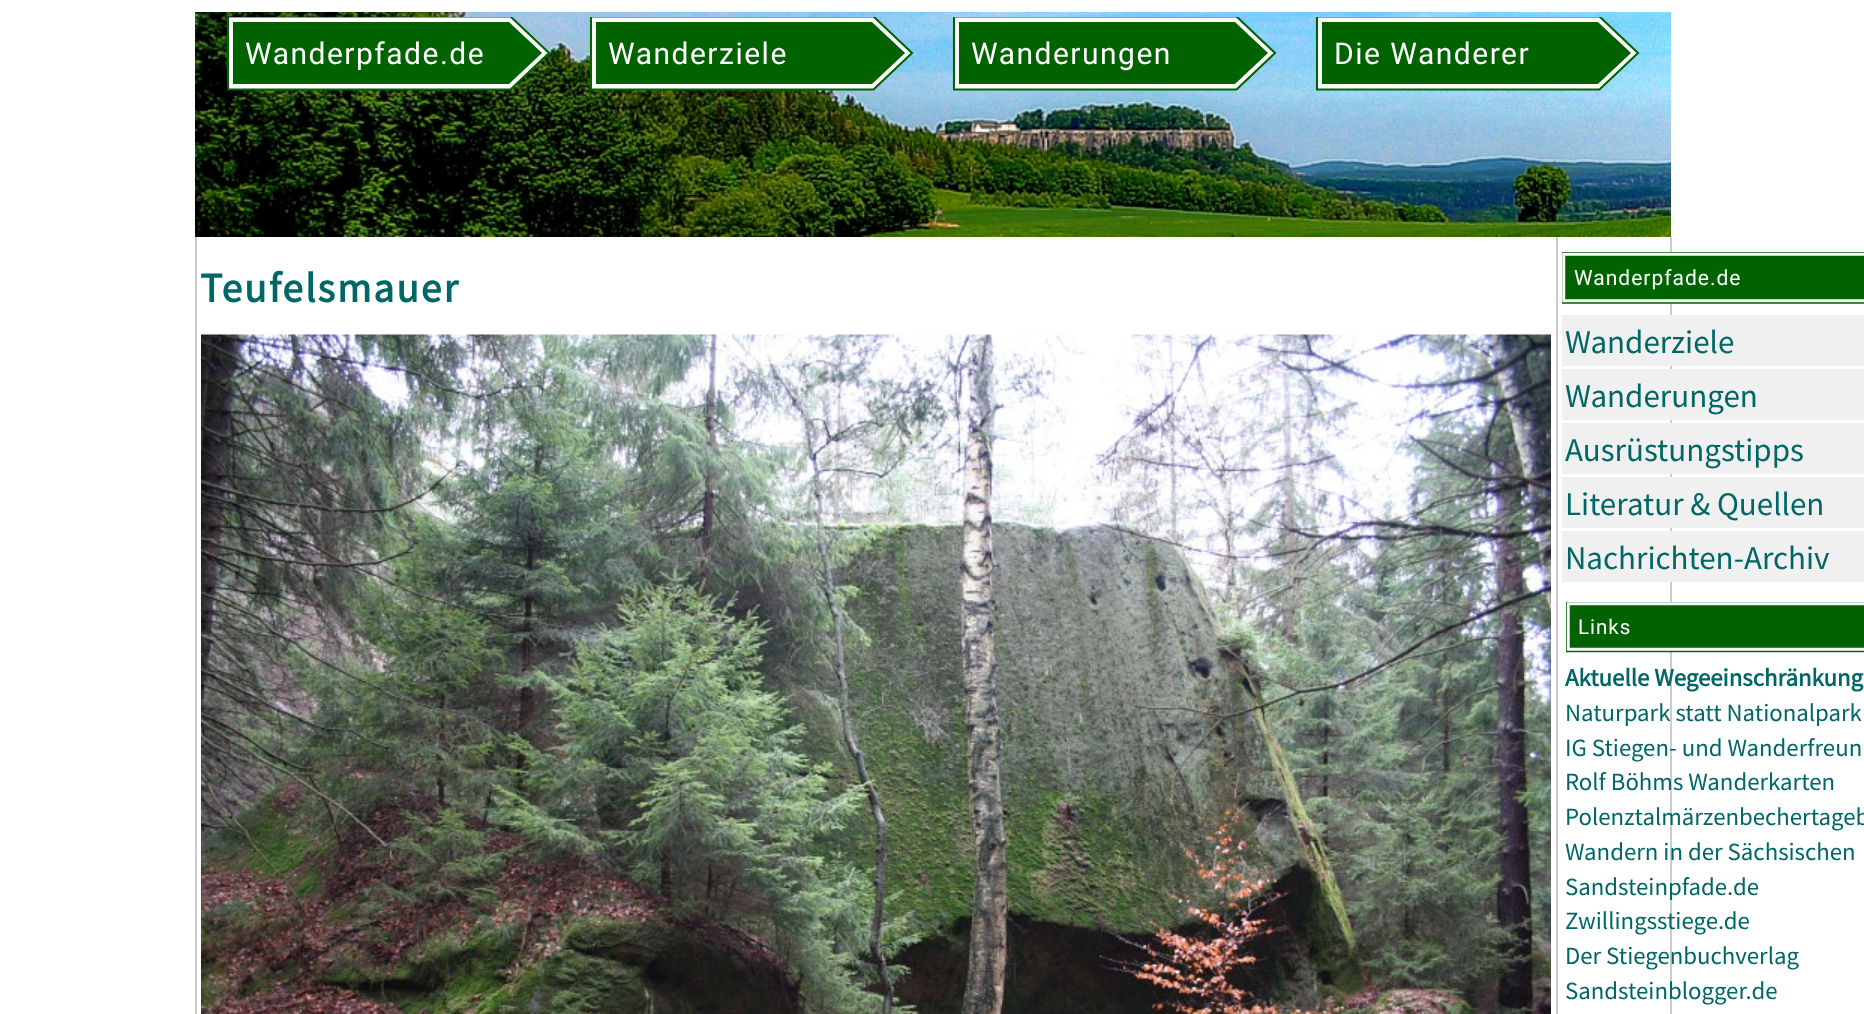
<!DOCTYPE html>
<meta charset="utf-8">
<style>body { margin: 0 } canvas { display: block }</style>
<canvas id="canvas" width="1864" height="1014"></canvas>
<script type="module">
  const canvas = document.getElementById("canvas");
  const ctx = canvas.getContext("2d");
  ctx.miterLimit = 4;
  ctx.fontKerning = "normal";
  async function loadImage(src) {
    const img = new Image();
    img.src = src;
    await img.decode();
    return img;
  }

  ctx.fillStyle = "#ffffff";
  ctx.fillRect(0, 0, 1864, 1014);
  ctx.drawImage(await loadImage("img1.png"), 195, 12, 1476, 225);
  ctx.save();
  ctx.beginPath();
  ctx.rect(215, 17, 348, 75);
  ctx.clip();
  ctx.beginPath();
  ctx.moveTo(228, 16);
  ctx.lineTo(511, 16);
  ctx.lineTo(549, 53);
  ctx.lineTo(511, 89);
  ctx.lineTo(228, 89);
  ctx.closePath();
  ctx.fill();
  ctx.beginPath();
  ctx.moveTo(228, 16.5);
  ctx.lineTo(510.5, 16.5);
  ctx.lineTo(549, 53);
  ctx.lineTo(510.5, 89.5);
  ctx.lineTo(228, 89.5);
  ctx.closePath();
  ctx.strokeStyle = "#006300";
  ctx.lineWidth = 2.1;
  ctx.stroke();
  ctx.restore();
  ctx.fillStyle = "#006300";
  ctx.beginPath();
  ctx.moveTo(234, 23);
  ctx.lineTo(508, 23);
  ctx.lineTo(541, 53);
  ctx.lineTo(508, 83);
  ctx.lineTo(234, 83);
  ctx.closePath();
  ctx.fill();
  ctx.beginPath();
  ctx.moveTo(234, 23);
  ctx.lineTo(508.5, 23);
  ctx.lineTo(540.5, 53);
  ctx.lineTo(508.5, 83);
  ctx.lineTo(234, 83);
  ctx.closePath();
  ctx.strokeStyle = "#006300";
  ctx.lineWidth = 2.1;
  ctx.stroke();
  ctx.letterSpacing = "1.5px";
  ctx.font = "30px Roboto";
  ctx.fillStyle = "#ffffff";
  ctx.fillText("Wanderpfade.de", 245, 64);
  ctx.save();
  ctx.beginPath();
  ctx.rect(578, 17, 348, 75);
  ctx.clip();
  ctx.beginPath();
  ctx.moveTo(591, 16);
  ctx.lineTo(874, 16);
  ctx.lineTo(912, 53);
  ctx.lineTo(874, 89);
  ctx.lineTo(591, 89);
  ctx.closePath();
  ctx.fill();
  ctx.beginPath();
  ctx.moveTo(591, 16.5);
  ctx.lineTo(873.5, 16.5);
  ctx.lineTo(912, 53);
  ctx.lineTo(873.5, 89.5);
  ctx.lineTo(591, 89.5);
  ctx.closePath();
  ctx.stroke();
  ctx.restore();
  ctx.fillStyle = "#006300";
  ctx.beginPath();
  ctx.moveTo(597, 23);
  ctx.lineTo(872, 23);
  ctx.lineTo(904, 53);
  ctx.lineTo(872, 83);
  ctx.lineTo(597, 83);
  ctx.closePath();
  ctx.fill();
  ctx.beginPath();
  ctx.moveTo(597, 23);
  ctx.lineTo(871.5, 23);
  ctx.lineTo(903.5, 53);
  ctx.lineTo(871.5, 83);
  ctx.lineTo(597, 83);
  ctx.closePath();
  ctx.stroke();
  ctx.fillStyle = "#ffffff";
  ctx.fillText("Wanderziele", 608, 64);
  ctx.save();
  ctx.beginPath();
  ctx.rect(941, 17, 348, 75);
  ctx.clip();
  ctx.beginPath();
  ctx.moveTo(954, 16);
  ctx.lineTo(1237, 16);
  ctx.lineTo(1275, 53);
  ctx.lineTo(1237, 89);
  ctx.lineTo(954, 89);
  ctx.closePath();
  ctx.fill();
  ctx.beginPath();
  ctx.moveTo(954, 16.5);
  ctx.lineTo(1236.5, 16.5);
  ctx.lineTo(1275, 53);
  ctx.lineTo(1236.5, 89.5);
  ctx.lineTo(954, 89.5);
  ctx.closePath();
  ctx.stroke();
  ctx.restore();
  ctx.fillStyle = "#006300";
  ctx.beginPath();
  ctx.moveTo(960, 23);
  ctx.lineTo(1234, 23);
  ctx.lineTo(1267, 53);
  ctx.lineTo(1234, 83);
  ctx.lineTo(960, 83);
  ctx.closePath();
  ctx.fill();
  ctx.beginPath();
  ctx.moveTo(960, 23);
  ctx.lineTo(1234.5, 23);
  ctx.lineTo(1266.5, 53);
  ctx.lineTo(1234.5, 83);
  ctx.lineTo(960, 83);
  ctx.closePath();
  ctx.stroke();
  ctx.fillStyle = "#ffffff";
  ctx.fillText("Wanderungen", 971, 64);
  ctx.save();
  ctx.beginPath();
  ctx.rect(1304, 17, 348, 75);
  ctx.clip();
  ctx.beginPath();
  ctx.moveTo(1317, 16);
  ctx.lineTo(1600, 16);
  ctx.lineTo(1638, 53);
  ctx.lineTo(1600, 89);
  ctx.lineTo(1317, 89);
  ctx.closePath();
  ctx.fill();
  ctx.beginPath();
  ctx.moveTo(1317, 16.5);
  ctx.lineTo(1599.5, 16.5);
  ctx.lineTo(1638, 53);
  ctx.lineTo(1599.5, 89.5);
  ctx.lineTo(1317, 89.5);
  ctx.closePath();
  ctx.stroke();
  ctx.restore();
  ctx.fillStyle = "#006300";
  ctx.beginPath();
  ctx.moveTo(1323, 23);
  ctx.lineTo(1598, 23);
  ctx.lineTo(1630, 53);
  ctx.lineTo(1598, 83);
  ctx.lineTo(1323, 83);
  ctx.closePath();
  ctx.fill();
  ctx.beginPath();
  ctx.moveTo(1323, 23);
  ctx.lineTo(1597.5, 23);
  ctx.lineTo(1629.5, 53);
  ctx.lineTo(1597.5, 83);
  ctx.lineTo(1323, 83);
  ctx.closePath();
  ctx.stroke();
  ctx.fillStyle = "#ffffff";
  ctx.fillText("Die Wanderer", 1334, 64);
  ctx.fillStyle = "#cccccc";
  ctx.fillRect(1670, 237, 2, 777);
  ctx.fillRect(1556, 237, 2, 777);
  ctx.fillRect(195, 237, 2, 777);
  ctx.letterSpacing = "2px";
  ctx.font = "bold 41.5px Source Sans Pro";
  ctx.fillStyle = "#006666";
  ctx.fillText("Teufelsmauer", 200, 302);
  ctx.drawImage(await loadImage("img2.png"), 201, 334, 1350, 680);
  ctx.fillStyle = "#ffffff";
  ctx.beginPath();
  ctx.moveTo(1562, 252);
  ctx.lineTo(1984, 252);
  ctx.lineTo(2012, 278);
  ctx.lineTo(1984, 303);
  ctx.lineTo(1562, 303);
  ctx.closePath();
  ctx.fill("evenodd");
  ctx.save();
  ctx.beginPath();
  ctx.rect(1562, 252, 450, 53);
  ctx.clip();
  ctx.beginPath();
  ctx.moveTo(1561.5, 252);
  ctx.lineTo(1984.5, 252);
  ctx.lineTo(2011.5, 277.5);
  ctx.lineTo(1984.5, 303);
  ctx.lineTo(1561.5, 303);
  ctx.closePath();
  ctx.lineWidth = 1.5;
  ctx.stroke();
  ctx.restore();
  ctx.fillStyle = "#006300";
  ctx.beginPath();
  ctx.moveTo(1566, 256);
  ctx.lineTo(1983, 256);
  ctx.lineTo(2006, 278);
  ctx.lineTo(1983, 298);
  ctx.lineTo(1566, 298);
  ctx.closePath();
  ctx.fill("evenodd");
  ctx.beginPath();
  ctx.moveTo(1566, 256.5);
  ctx.lineTo(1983, 256.5);
  ctx.lineTo(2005.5, 277.5);
  ctx.lineTo(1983, 298.5);
  ctx.lineTo(1566, 298.5);
  ctx.closePath();
  ctx.lineWidth = 1.5;
  ctx.stroke();
  ctx.letterSpacing = "1px";
  ctx.font = "21px Roboto";
  ctx.fillStyle = "#ffffff";
  ctx.fillText("Wanderpfade.de", 1574, 285);
  ctx.fillStyle = "#f0f0f0";
  ctx.fillRect(1562, 315, 302, 51);
  ctx.letterSpacing = "0px";
  ctx.font = "33px Source Sans Pro";
  ctx.fillStyle = "#006666";
  ctx.fillText("Wanderziele", 1565, 353);
  ctx.fillStyle = "#f0f0f0";
  ctx.fillRect(1562, 369, 302, 51);
  ctx.fillStyle = "#006666";
  ctx.fillText("Wanderungen", 1565, 407);
  ctx.fillStyle = "#f0f0f0";
  ctx.fillRect(1562, 423, 302, 51);
  ctx.fillStyle = "#006666";
  ctx.fillText("Ausrüstungstipps", 1565, 461);
  ctx.fillStyle = "#f0f0f0";
  ctx.fillRect(1562, 477, 302, 51);
  ctx.fillStyle = "#006666";
  ctx.fillText("Literatur & Quellen", 1565, 515);
  ctx.fillStyle = "#f0f0f0";
  ctx.fillRect(1562, 531, 302, 51);
  ctx.fillStyle = "#006666";
  ctx.fillText("Nachrichten-Archiv", 1565, 569);
  ctx.fillStyle = "#ffffff";
  ctx.beginPath();
  ctx.moveTo(1566, 602);
  ctx.lineTo(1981, 602);
  ctx.lineTo(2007, 626);
  ctx.lineTo(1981, 651);
  ctx.lineTo(1566, 651);
  ctx.closePath();
  ctx.fill("evenodd");
  ctx.save();
  ctx.beginPath();
  ctx.rect(1566, 602, 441, 51);
  ctx.clip();
  ctx.beginPath();
  ctx.moveTo(1566, 601.5);
  ctx.lineTo(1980.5, 601.5);
  ctx.lineTo(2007, 626.5);
  ctx.lineTo(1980.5, 651.5);
  ctx.lineTo(1566, 651.5);
  ctx.closePath();
  ctx.stroke();
  ctx.restore();
  ctx.fillStyle = "#006300";
  ctx.beginPath();
  ctx.moveTo(1570, 606);
  ctx.lineTo(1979, 606);
  ctx.lineTo(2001, 626);
  ctx.lineTo(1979, 647);
  ctx.lineTo(1570, 647);
  ctx.closePath();
  ctx.fill("evenodd");
  ctx.beginPath();
  ctx.moveTo(1570.5, 606);
  ctx.lineTo(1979, 606);
  ctx.lineTo(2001, 626.5);
  ctx.lineTo(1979, 647);
  ctx.lineTo(1570.5, 647);
  ctx.closePath();
  ctx.stroke();
  ctx.letterSpacing = "1px";
  ctx.font = "20.5px Roboto";
  ctx.fillStyle = "#ffffff";
  ctx.fillText("Links", 1578, 634);
  ctx.letterSpacing = "0px";
  ctx.font = "bold 24.8px Source Sans Pro";
  ctx.fillStyle = "#006666";
  ctx.fillText("Aktuelle Wegeeinschränkung", 1565, 686);
  ctx.font = "24.8px Source Sans Pro";
  ctx.fillText("Naturpark statt Nationalpark", 1565, 721);
  ctx.fillText("IG Stiegen- und Wanderfreun", 1565, 756);
  ctx.fillText("Rolf Böhms Wanderkarten", 1565, 790);
  ctx.fillText("Polenztalmärzenbechertageb", 1565, 825);
  ctx.fillText("Wandern in der Sächsischen", 1565, 860);
  ctx.fillText("Sandsteinpfade.de", 1565, 895);
  ctx.fillText("Zwillingsstiege.de", 1565, 929);
  ctx.fillText("Der Stiegenbuchverlag", 1565, 964);
  ctx.fillText("Sandsteinblogger.de", 1565, 999);
</script>
